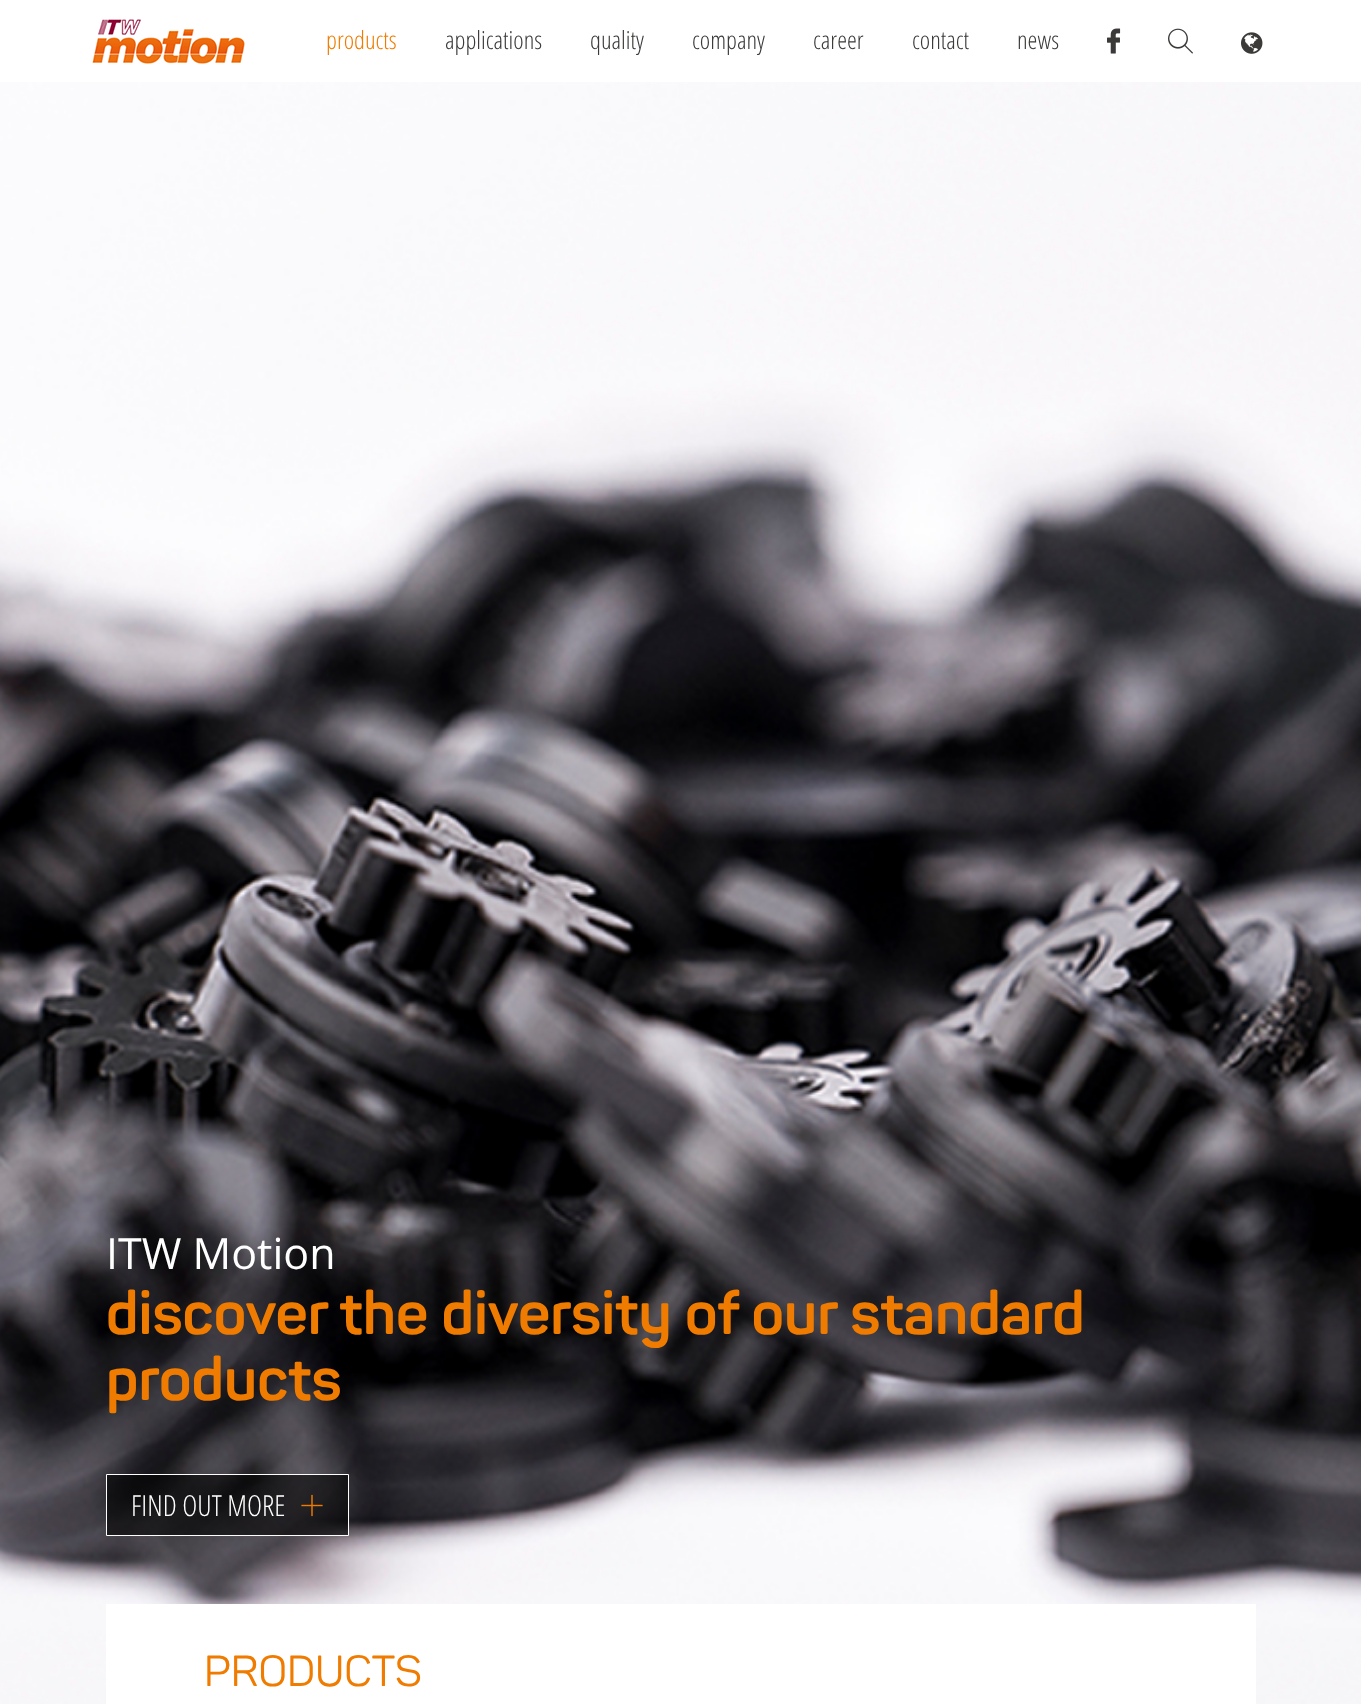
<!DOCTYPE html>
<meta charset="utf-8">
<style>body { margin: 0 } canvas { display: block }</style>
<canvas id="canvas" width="1361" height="1704"></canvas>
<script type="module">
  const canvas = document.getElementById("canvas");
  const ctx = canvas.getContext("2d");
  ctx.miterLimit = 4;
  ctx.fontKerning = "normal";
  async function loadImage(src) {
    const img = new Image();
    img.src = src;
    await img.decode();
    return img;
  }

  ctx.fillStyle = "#ffffff";
  ctx.fillRect(0, 0, 1361, 1704);
  ctx.drawImage(await loadImage("img1.png"), 92, 19, 153, 45);
  ctx.font = "300 25px Open Sans Condensed";
  ctx.fillStyle = "#ef7c00";
  ctx.fillText("products", 326, 49);
  ctx.fillStyle = "#3b3a39";
  ctx.fillText("applications", 445, 49);
  ctx.fillText("quality", 590, 49);
  ctx.fillText("company", 692, 49);
  ctx.fillText("career", 813, 49);
  ctx.fillText("contact", 912, 49);
  ctx.fillText("news", 1017, 49);
  ctx.drawImage(await loadImage("img2.png"), 1107, 28, 14, 26);
  ctx.drawImage(await loadImage("img3.png"), 1168, 28, 25, 26);
  ctx.drawImage(await loadImage("img4.png"), 1241, 32, 22, 22);
  ctx.drawImage(await loadImage("img5.png"), 0, 82, 1361, 1622);
  ctx.font = "43px Open Sans";
  ctx.fillStyle = "#ffffff";
  ctx.fillText("ITW Motion", 106, 1269);
  ctx.font = "60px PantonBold";
  ctx.fillStyle = "#ef7c00";
  ctx.fillText("discover the diversity of our standard", 106, 1334);
  ctx.fillText("products", 106, 1400);
  ctx.fillStyle = "rgba(0, 0, 0, 0.6)";
  ctx.beginPath();
  ctx.rect(106.5, 1474.5, 242, 61);
  ctx.fill();
  ctx.strokeStyle = "#ffffff";
  ctx.stroke();
  ctx.font = "300 29px Open Sans Condensed";
  ctx.fillStyle = "#ffffff";
  ctx.fillText("FIND OUT MORE", 131, 1516);
  ctx.drawImage(await loadImage("img6.png"), 301, 1494, 22, 23);
  ctx.fillRect(106, 1604, 1150, 100);
  ctx.font = "43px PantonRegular";
  ctx.fillStyle = "#ef7c00";
  ctx.fillText("PRODUCTS", 204, 1686);
</script>
